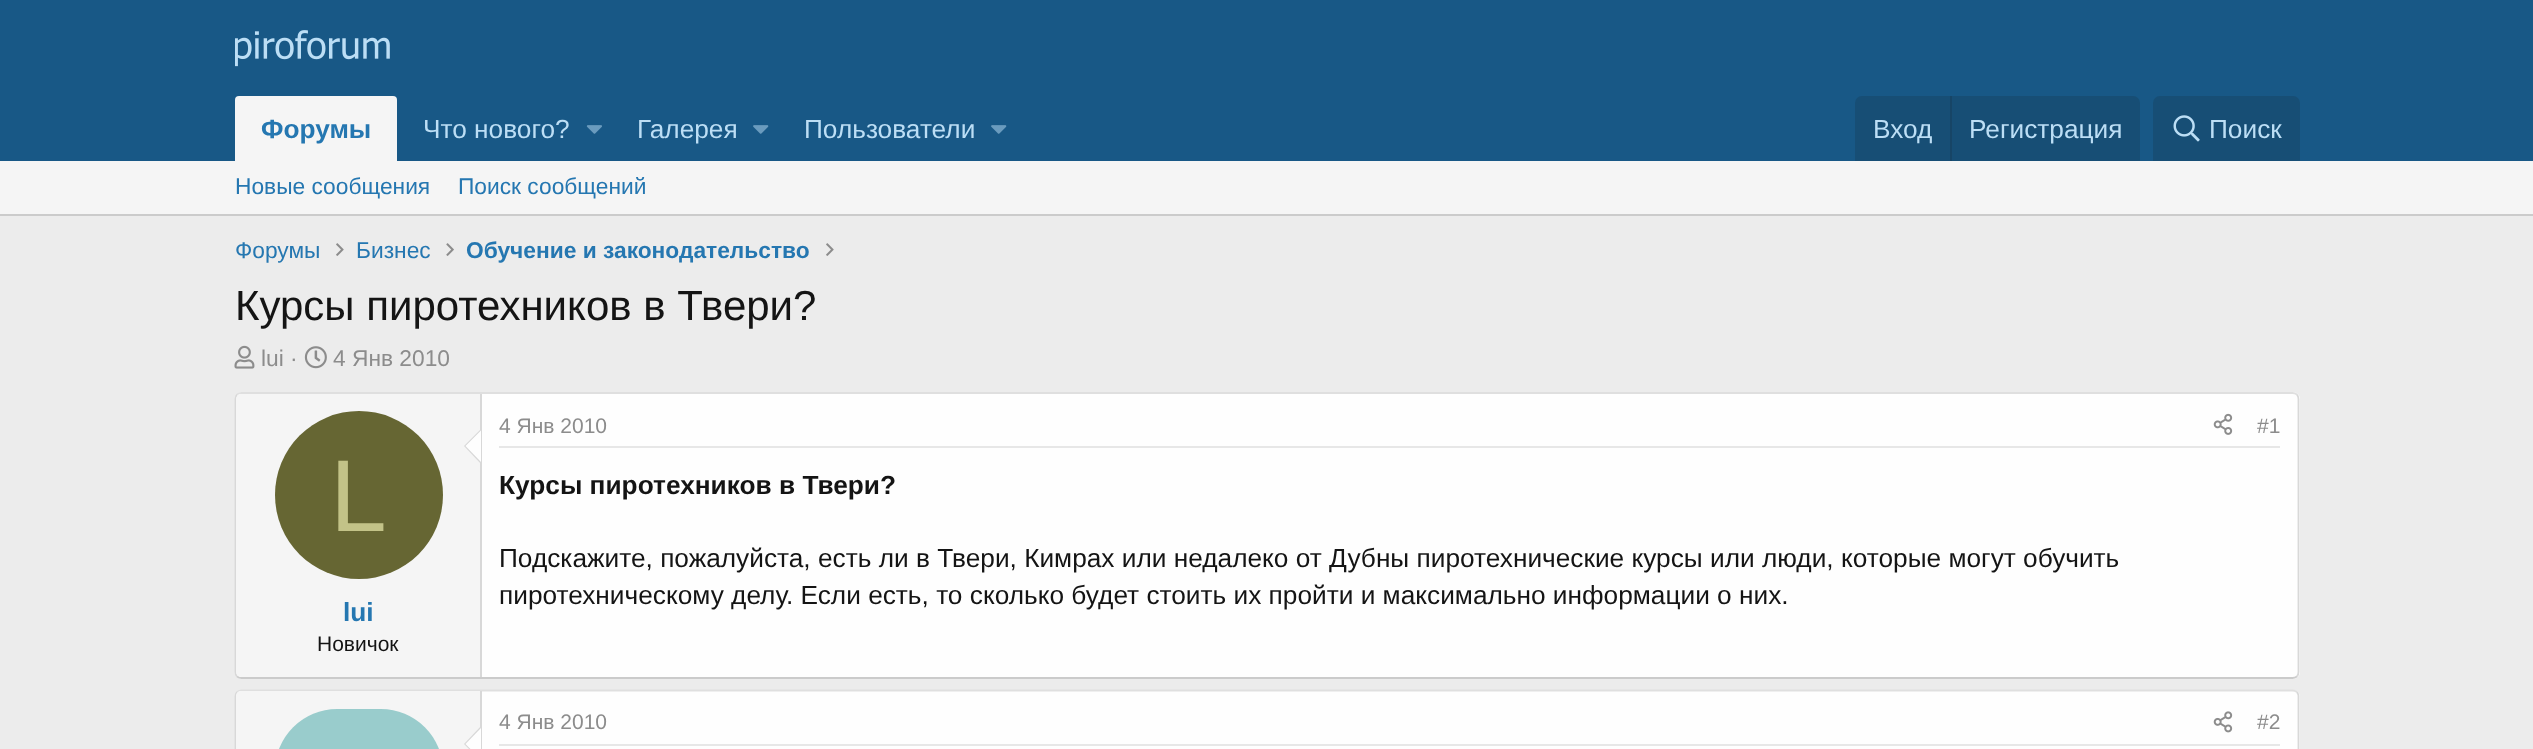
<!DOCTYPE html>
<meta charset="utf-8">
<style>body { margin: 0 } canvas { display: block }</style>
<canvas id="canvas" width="2533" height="749"></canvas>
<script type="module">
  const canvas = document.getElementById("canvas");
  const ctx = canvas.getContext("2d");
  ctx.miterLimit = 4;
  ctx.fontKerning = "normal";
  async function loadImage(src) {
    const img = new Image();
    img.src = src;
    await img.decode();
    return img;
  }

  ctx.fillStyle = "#ececec";
  ctx.fillRect(0, 0, 2533, 749);
  ctx.fillStyle = "#185886";
  ctx.fillRect(0, 0, 2533, 161);
  ctx.drawImage(await loadImage("img1.png"), 235, 30, 155, 37);
  ctx.fillStyle = "#f5f5f5";
  ctx.beginPath();
  ctx.roundRect(235, 96, 162, 65, [4, 4, 0, 0]);
  ctx.fill();
  ctx.font = "bold 26.25px Liberation Sans";
  ctx.fillStyle = "#2577b1";
  ctx.fillText("Форумы", 261, 138);
  ctx.font = "26.25px Liberation Sans";
  ctx.fillStyle = "#bcdef5";
  ctx.fillText("Что нового?", 423, 138);
  ctx.drawImage(await loadImage("img2.png"), 586, 125, 16, 9);
  ctx.fillText("Галерея", 637, 138);
  ctx.drawImage(await loadImage("img3.png"), 753, 125, 16, 9);
  ctx.fillText("Пользователи", 804, 138);
  ctx.drawImage(await loadImage("img3.png"), 991, 125, 16, 9);
  ctx.fillStyle = "#174e75";
  ctx.beginPath();
  ctx.roundRect(1855, 96, 285, 65, [7, 7, 0, 0]);
  ctx.fill();
  ctx.fillStyle = "#bcdef5";
  ctx.fillText("Вход", 1873, 138);
  ctx.fillStyle = "#174566";
  ctx.fillRect(1950, 96, 2, 65);
  ctx.fillStyle = "#bcdef5";
  ctx.fillText("Регистрация", 1969, 138);
  ctx.fillStyle = "#174e75";
  ctx.beginPath();
  ctx.roundRect(2153, 96, 147, 65, [7, 7, 0, 0]);
  ctx.fill();
  ctx.drawImage(await loadImage("img4.png"), 2173, 115, 27, 27);
  ctx.fillStyle = "#bcdef5";
  ctx.fillText("Поиск", 2209, 138);
  ctx.fillStyle = "#f5f5f5";
  ctx.fillRect(0, 161, 2533, 53);
  ctx.fillStyle = "#cbcbcb";
  ctx.fillRect(0, 214, 2533, 2);
  ctx.font = "22.75px Liberation Sans";
  ctx.fillStyle = "#2577b1";
  ctx.fillText("Новые сообщения", 235, 194);
  ctx.fillText("Поиск сообщений", 458, 194);
  ctx.fillText("Форумы", 235, 258);
  ctx.drawImage(await loadImage("img5.png"), 336, 243, 8, 13);
  ctx.fillText("Бизнес", 356, 258);
  ctx.drawImage(await loadImage("img6.png"), 446, 243, 8, 13);
  ctx.font = "bold 22.75px Liberation Sans";
  ctx.fillText("Обучение и законодательство", 466, 258);
  ctx.drawImage(await loadImage("img5.png"), 826, 243, 8, 13);
  ctx.font = "42px Liberation Sans";
  ctx.fillStyle = "#141414";
  ctx.fillText("Курсы пиротехников в Твери?", 235, 320);
  ctx.drawImage(await loadImage("img7.png"), 234, 345, 21, 24);
  ctx.font = "22.75px Liberation Sans";
  ctx.fillStyle = "#8c8c8c";
  ctx.fillText("lui ·", 261, 366);
  ctx.drawImage(await loadImage("img8.png"), 304, 346, 23, 23);
  ctx.fillText("4 Янв 2010", 333, 366);
  ctx.fillStyle = "#fefefe";
  ctx.beginPath();
  ctx.roundRect(235, 392, 2065, 287, 7);
  ctx.fill();
  ctx.beginPath();
  ctx.moveTo(237, 394.5);
  ctx.bezierCurveTo(238.5, 393.5, 240, 393, 241.5, 393);
  ctx.lineTo(2292.5, 393);
  ctx.bezierCurveTo(2294, 393, 2295.5, 393.5, 2297, 394.5);
  ctx.strokeStyle = "#dfdfdf";
  ctx.lineWidth = 1.8;
  ctx.stroke();
  ctx.beginPath();
  ctx.moveTo(2297, 394.5);
  ctx.bezierCurveTo(2298, 396, 2298.5, 397.5, 2298.5, 399);
  ctx.lineTo(2298.5, 672);
  ctx.bezierCurveTo(2298.5, 673.5, 2298, 675, 2297, 676.5);
  ctx.strokeStyle = "#d8d8d8";
  ctx.stroke();
  ctx.beginPath();
  ctx.moveTo(2297, 676.5);
  ctx.bezierCurveTo(2295.5, 677.5, 2294, 678, 2292.5, 678);
  ctx.lineTo(241.5, 678);
  ctx.bezierCurveTo(240, 678, 238.5, 677.5, 237, 676.5);
  ctx.strokeStyle = "#cbcbcb";
  ctx.stroke();
  ctx.beginPath();
  ctx.moveTo(237, 676.5);
  ctx.bezierCurveTo(236, 675, 235.5, 673.5, 235.5, 672);
  ctx.lineTo(235.5, 399);
  ctx.bezierCurveTo(235.5, 397.5, 236, 396, 237, 394.5);
  ctx.strokeStyle = "#d8d8d8";
  ctx.stroke();
  ctx.fillStyle = "#f5f5f5";
  ctx.beginPath();
  ctx.roundRect(236, 394, 245, 283, [5, 0, 0, 5]);
  ctx.fill();
  ctx.fillStyle = "#d8d8d8";
  ctx.fillRect(480, 394, 2, 283);
  ctx.beginPath();
  ctx.moveTo(481, 429);
  ctx.lineTo(481, 464);
  ctx.lineTo(464, 446);
  ctx.closePath();
  ctx.fill();
  ctx.fillStyle = "#fefefe";
  ctx.beginPath();
  ctx.moveTo(481, 430.5);
  ctx.lineTo(481, 462);
  ctx.lineTo(465.5, 446);
  ctx.closePath();
  ctx.fill();
  ctx.fillStyle = "#666633";
  ctx.beginPath();
  ctx.arc(359, 495, 84, 0, Math.PI * 2);
  ctx.fill();
  ctx.font = "102px Liberation Sans";
  ctx.fillStyle = "#c3c388";
  ctx.fillText("L", 330, 531);
  ctx.font = "bold 26.25px Liberation Sans";
  ctx.fillStyle = "#2577b1";
  ctx.fillText("lui", 343, 621);
  ctx.font = "21px Liberation Sans";
  ctx.fillStyle = "#141414";
  ctx.fillText("Новичок", 317, 651);
  ctx.fillStyle = "#e7e7e7";
  ctx.fillRect(499, 446, 1781, 2);
  ctx.fillStyle = "#8c8c8c";
  ctx.fillText("4 Янв 2010", 499, 433);
  ctx.drawImage(await loadImage("img9.png"), 2213, 413, 20, 22);
  ctx.fillText("#1", 2257, 433);
  ctx.font = "bold 26.25px Liberation Sans";
  ctx.fillStyle = "#141414";
  ctx.fillText("Курсы пиротехников в Твери?", 499, 494);
  ctx.font = "26.25px Liberation Sans";
  ctx.fillText("Подскажите, пожалуйста, есть ли в Твери, Кимрах или недалеко от Дубны пиротехнические курсы или люди, которые могут обучить", 499, 567);
  ctx.fillText("пиротехническому делу. Если есть, то сколько будет стоить их пройти и максимально информации о них.", 499, 604);
  ctx.fillStyle = "#fefefe";
  ctx.beginPath();
  ctx.roundRect(235, 690, 2065, 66, 7);
  ctx.fill();
  ctx.beginPath();
  ctx.moveTo(237, 692);
  ctx.bezierCurveTo(238.5, 691, 240, 690.5, 241.5, 690.5);
  ctx.lineTo(2292.5, 690.5);
  ctx.bezierCurveTo(2294, 690.5, 2295.5, 691, 2297, 692);
  ctx.strokeStyle = "#dfdfdf";
  ctx.stroke();
  ctx.beginPath();
  ctx.moveTo(2297, 692);
  ctx.bezierCurveTo(2298, 693.5, 2298.5, 695, 2298.5, 696.5);
  ctx.lineTo(2298.5, 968);
  ctx.bezierCurveTo(2298.5, 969.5, 2298, 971, 2297, 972);
  ctx.strokeStyle = "#d8d8d8";
  ctx.stroke();
  ctx.beginPath();
  ctx.moveTo(237, 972);
  ctx.bezierCurveTo(236, 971, 235.5, 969.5, 235.5, 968);
  ctx.lineTo(235.5, 696.5);
  ctx.bezierCurveTo(235.5, 695, 236, 693.5, 237, 692);
  ctx.stroke();
  ctx.fillStyle = "#f5f5f5";
  ctx.beginPath();
  ctx.moveTo(241, 691);
  ctx.lineTo(481, 691);
  ctx.lineTo(481, 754);
  ctx.lineTo(241, 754);
  ctx.bezierCurveTo(238, 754, 236, 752, 236, 749);
  ctx.lineTo(236, 696);
  ctx.bezierCurveTo(236, 693, 238, 691, 241, 691);
  ctx.closePath();
  ctx.fill();
  ctx.fillStyle = "#d8d8d8";
  ctx.fillRect(480, 691, 2, 58);
  ctx.fillStyle = "#99cccc";
  ctx.beginPath();
  ctx.roundRect(275, 709, 168, 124, 84);
  ctx.fill();
  ctx.fillStyle = "#d8d8d8";
  ctx.beginPath();
  ctx.moveTo(481, 726);
  ctx.lineTo(481, 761);
  ctx.lineTo(464, 744);
  ctx.closePath();
  ctx.fill();
  ctx.fillStyle = "#fefefe";
  ctx.beginPath();
  ctx.moveTo(481, 728);
  ctx.lineTo(481, 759.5);
  ctx.lineTo(465.5, 744);
  ctx.closePath();
  ctx.fill();
  ctx.fillStyle = "#e7e7e7";
  ctx.fillRect(499, 744, 1781, 2);
  ctx.font = "21px Liberation Sans";
  ctx.fillStyle = "#8c8c8c";
  ctx.fillText("4 Янв 2010", 499, 729);
  ctx.drawImage(await loadImage("img10.png"), 2213, 711, 20, 22);
  ctx.fillText("#2", 2257, 729);
</script>
